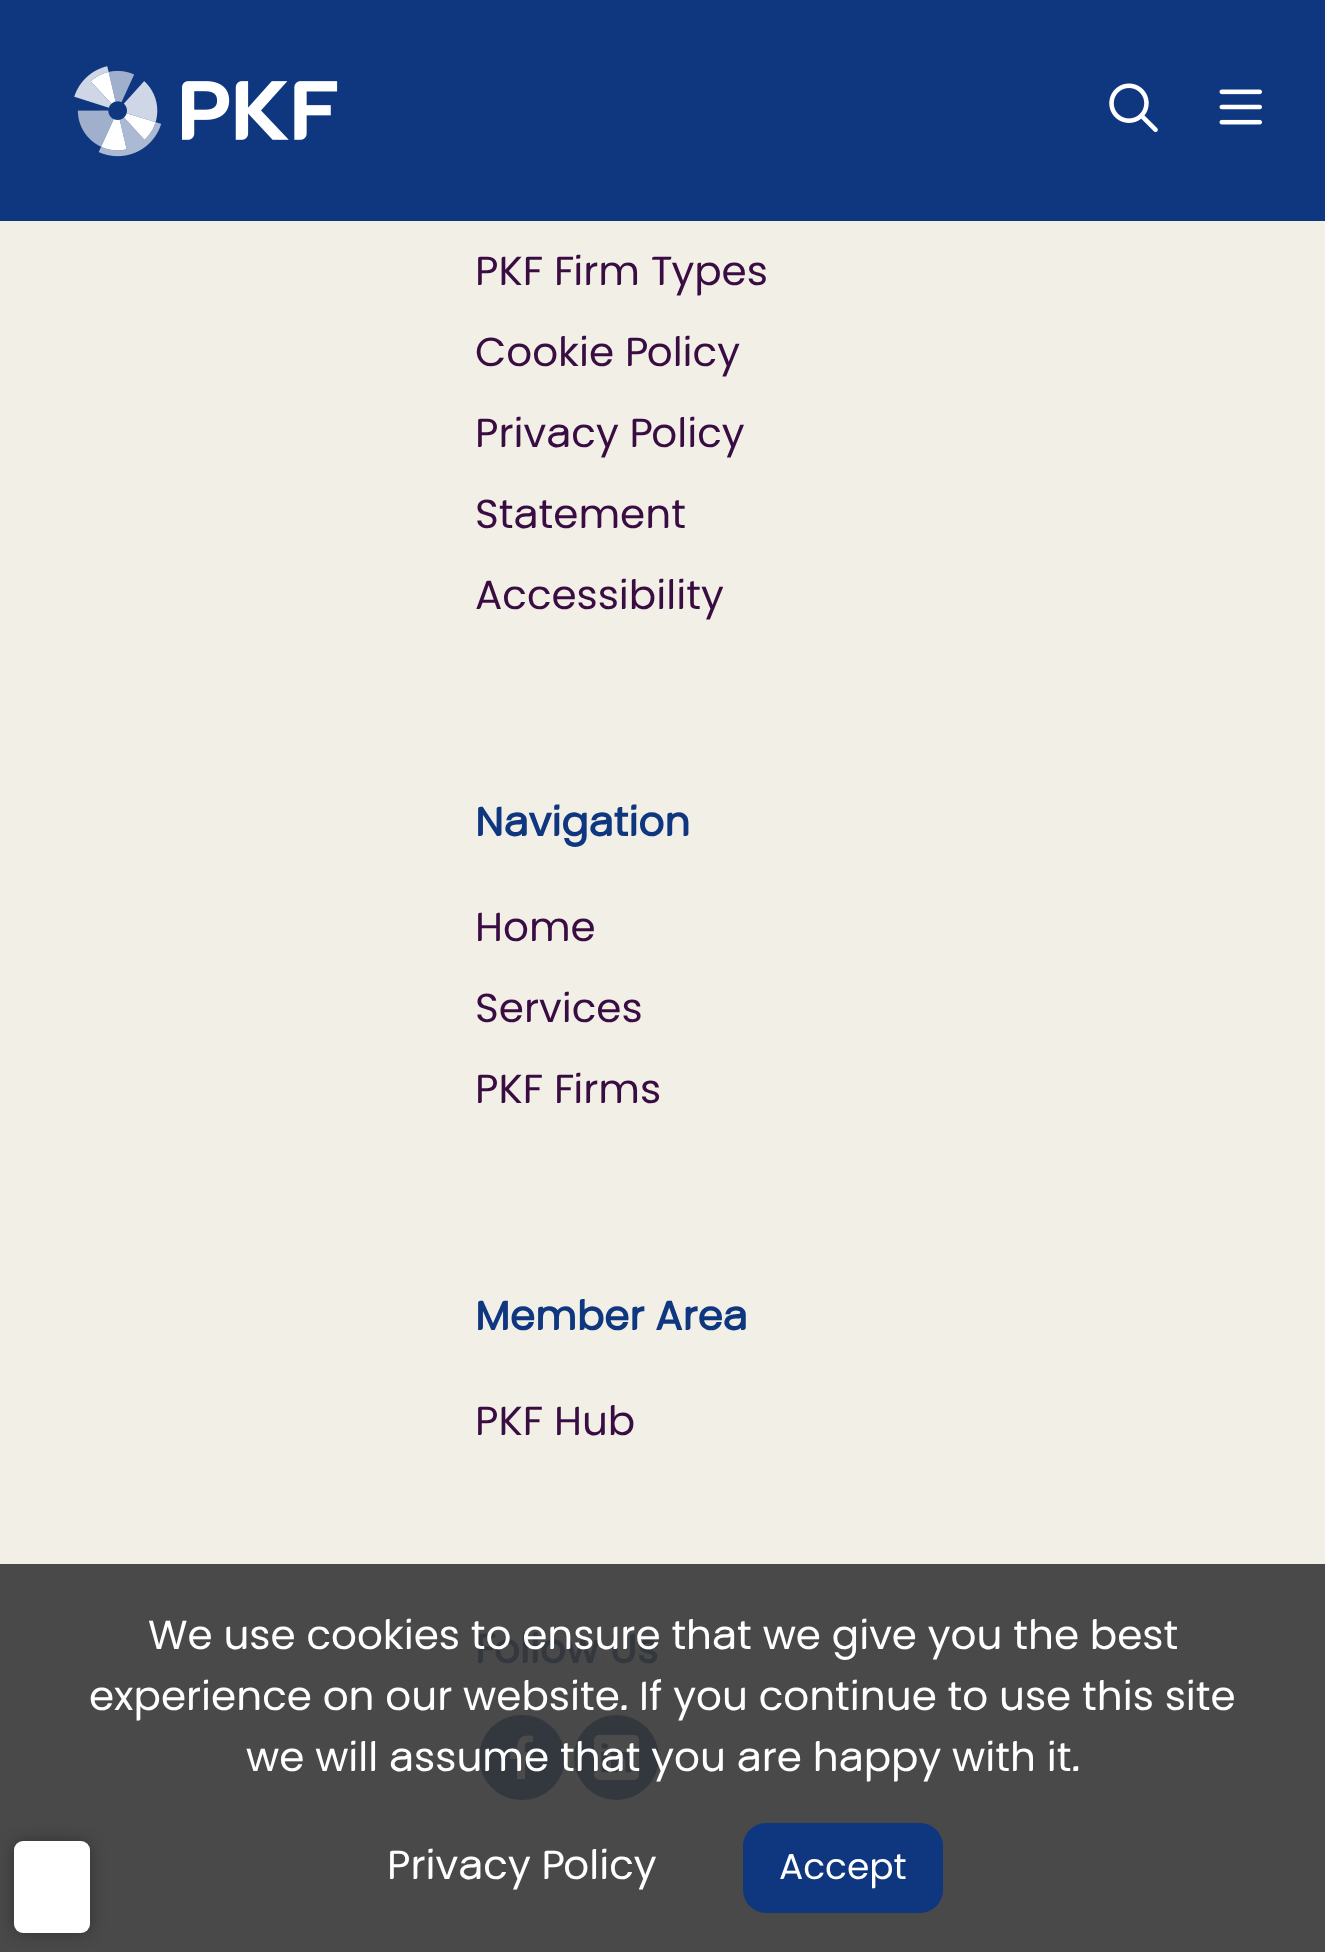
<!DOCTYPE html>
<meta charset="utf-8">
<style>body { margin: 0 } canvas { display: block }</style>
<canvas id="canvas" width="1325" height="1952"></canvas>
<script type="module">
  const canvas = document.getElementById("canvas");
  const ctx = canvas.getContext("2d");
  ctx.miterLimit = 4;
  ctx.fontKerning = "normal";
  async function loadImage(src) {
    const img = new Image();
    img.src = src;
    await img.decode();
    return img;
  }

  ctx.fillStyle = "#f2efe7";
  ctx.fillRect(0, 0, 1325, 1952);
  ctx.fillStyle = "#0f3780";
  ctx.fillRect(0, 0, 1325, 221);
  ctx.drawImage(await loadImage("img1.png"), 74, 66, 264, 91);
  ctx.drawImage(await loadImage("img2.png"), 1109, 83, 49, 50);
  ctx.drawImage(await loadImage("img3.png"), 1219, 89, 43, 36);
  ctx.fillStyle = "#4a4949";
  ctx.fillRect(0, 1564, 1325, 388);
  ctx.font = "40.5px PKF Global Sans";
  ctx.fillStyle = "#390c42";
  ctx.fillText("PKF Firm Types", 475, 285);
  ctx.fillText("Cookie Policy", 475, 366);
  ctx.fillText("Privacy Policy", 475, 447);
  ctx.fillText("Statement", 475, 528);
  ctx.fillText("Accessibility", 475, 609);
  ctx.font = "bold 40.5px PKF Global Sans";
  ctx.fillStyle = "#0f3780";
  ctx.fillText("Navigation", 475, 836);
  ctx.font = "40.5px PKF Global Sans";
  ctx.fillStyle = "#390c42";
  ctx.fillText("Home", 475, 941);
  ctx.fillText("Services", 475, 1022);
  ctx.fillText("PKF Firms", 475, 1103);
  ctx.font = "bold 40.5px PKF Global Sans";
  ctx.fillStyle = "#0f3780";
  ctx.fillText("Member Area", 475, 1330);
  ctx.font = "40.5px PKF Global Sans";
  ctx.fillStyle = "#390c42";
  ctx.fillText("PKF Hub", 475, 1435);
  ctx.font = "bold 40.5px PKF Global Sans";
  ctx.fillStyle = "#33373e";
  ctx.fillText("Follow Us", 475, 1663);
  ctx.beginPath();
  ctx.roundRect(479, 1715, 86, 85, 42.5);
  ctx.fill();
  ctx.fillStyle = "#4b4b4b";
  ctx.beginPath();
  ctx.moveTo(517, 1779);
  ctx.lineTo(517, 1759);
  ctx.lineTo(510, 1759);
  ctx.lineTo(510, 1752);
  ctx.lineTo(517, 1752);
  ctx.bezierCurveTo(517, 1739, 520, 1734, 533, 1736);
  ctx.lineTo(533, 1742);
  ctx.bezierCurveTo(524, 1742, 525, 1743, 525, 1752);
  ctx.lineTo(533, 1752);
  ctx.lineTo(532, 1759);
  ctx.lineTo(525, 1759);
  ctx.lineTo(525, 1779);
  ctx.closePath();
  ctx.fill();
  ctx.fillStyle = "#33373e";
  ctx.beginPath();
  ctx.arc(616.5, 1757.5, 42.5, 0, Math.PI * 2);
  ctx.fill();
  ctx.drawImage(await loadImage("img4.png"), 594, 1735, 45, 45);
  ctx.fillStyle = "rgba(0, 0, 0, 0.3)";
  ctx.filter = "blur(8px)";
  ctx.beginPath();
  ctx.roundRect(14, 1841, 76, 92, 9);
  ctx.fill();
  ctx.filter = "none";
  ctx.fillStyle = "#ffffff";
  ctx.beginPath();
  ctx.roundRect(14, 1841, 76, 92, 9);
  ctx.fill();
  ctx.font = "40.5px PKF Global Sans";
  ctx.fillText("We use cookies to ensure that we give you the best", 148, 1649);
  ctx.fillText("experience on our website. If you continue to use this site", 89, 1710);
  ctx.fillText("we will assume that you are happy with it.", 246, 1771);
  ctx.fillText("Privacy Policy", 387, 1879);
  ctx.fillStyle = "#0f3780";
  ctx.beginPath();
  ctx.roundRect(743, 1823, 200, 90, 23);
  ctx.fill();
  ctx.font = "36px PKF Global Sans";
  ctx.fillStyle = "#ffffff";
  ctx.fillText("Accept", 779, 1879);
</script>
